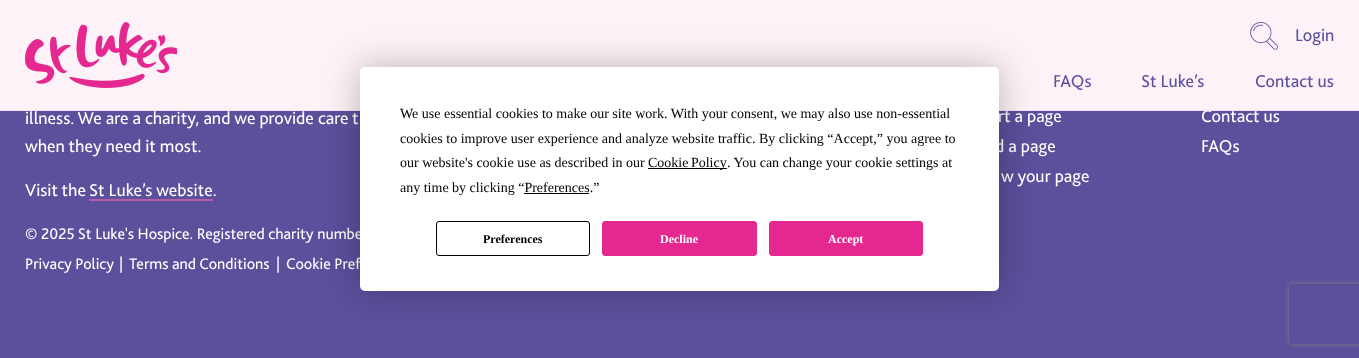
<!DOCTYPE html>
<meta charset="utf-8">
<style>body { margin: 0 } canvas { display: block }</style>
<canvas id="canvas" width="1359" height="358"></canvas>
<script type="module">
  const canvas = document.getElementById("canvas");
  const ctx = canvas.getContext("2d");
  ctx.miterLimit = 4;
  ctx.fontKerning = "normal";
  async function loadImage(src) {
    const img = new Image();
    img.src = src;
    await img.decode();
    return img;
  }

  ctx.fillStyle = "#5c4f9c";
  ctx.fillRect(0, 0, 1359, 358);
  ctx.font = "18px 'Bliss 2'";
  ctx.fillStyle = "#ffffff";
  ctx.fillText("Contact us", 1201, 122);
  ctx.fillStyle = "rgba(255, 246, 249, 0.98)";
  ctx.fillRect(0, 0, 1359, 111);
  ctx.fillStyle = "rgba(189, 186, 216, 0.2)";
  ctx.fillRect(0, 110, 1359, 1);
  ctx.drawImage(await loadImage("img1.png"), 25, 22, 152, 66);
  ctx.drawImage(await loadImage("img2.png"), 1250, 22, 28, 28);
  ctx.fillStyle = "#5c4f9c";
  ctx.fillText("Login", 1295, 41);
  ctx.fillText("FAQs", 1053, 87);
  ctx.fillText("St Luke’s", 1141, 87);
  ctx.fillText("Contact us", 1255, 87);
  ctx.fillStyle = "#ffffff";
  ctx.fillText("illness. We are a charity, and we provide care t", 25, 124);
  ctx.fillText("when they need it most.", 25, 152);
  ctx.fillText("Visit the", 25, 196);
  ctx.fillText("St Luke’s website.", 89, 196);
  ctx.fillStyle = "#b25ea9";
  ctx.fillRect(89, 199, 124, 2);
  ctx.font = "16px 'Bliss 2'";
  ctx.fillStyle = "#ffffff";
  ctx.fillText("© 2025 St Luke's Hospice. Registered charity numbe", 25, 239);
  ctx.fillText("Privacy Policy", 25, 269);
  ctx.fillText("|", 119, 269);
  ctx.fillText("Terms and Conditions", 129, 269);
  ctx.fillText("|", 276, 269);
  ctx.fillText("Cookie Pref", 286, 269);
  ctx.font = "18px 'Bliss 2'";
  ctx.fillText("rt a page", 998, 122);
  ctx.fillText("d a page", 995, 152);
  ctx.fillText("w your page", 1001, 182);
  ctx.fillText("FAQs", 1201, 152);
  ctx.save();
  ctx.beginPath();
  ctx.moveTo(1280, 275);
  ctx.lineTo(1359, 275);
  ctx.lineTo(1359, 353);
  ctx.lineTo(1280, 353);
  ctx.closePath();
  ctx.moveTo(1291, 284);
  ctx.lineTo(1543, 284);
  ctx.bezierCurveTo(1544, 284, 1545, 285, 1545, 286);
  ctx.lineTo(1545, 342);
  ctx.bezierCurveTo(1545, 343, 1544, 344, 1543, 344);
  ctx.lineTo(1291, 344);
  ctx.bezierCurveTo(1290, 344, 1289, 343, 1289, 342);
  ctx.lineTo(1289, 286);
  ctx.bezierCurveTo(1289, 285, 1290, 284, 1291, 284);
  ctx.closePath();
  ctx.clip("evenodd");
  ctx.fillStyle = "#808080";
  ctx.filter = "blur(2.5px)";
  ctx.beginPath();
  ctx.roundRect(1289, 284, 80, 60, 2);
  ctx.fill();
  ctx.filter = "none";
  ctx.restore();
  ctx.fillStyle = "rgba(0, 0, 0, 0.25)";
  ctx.filter = "blur(17.5px)";
  ctx.beginPath();
  ctx.roundRect(360, 67, 639, 224, 5);
  ctx.fill();
  ctx.filter = "none";
  ctx.fillStyle = "#ffffff";
  ctx.beginPath();
  ctx.roundRect(360, 67, 639, 224, 5);
  ctx.fill();
  ctx.font = "14px Liberation Serif";
  ctx.fillStyle = "#000000";
  ctx.fillText("We use essential cookies to make our site work. With your consent, we may also use non-essential", 400, 118);
  ctx.fillText("cookies to improve user experience and analyze website traffic. By clicking “Accept,” you agree to", 400, 143);
  ctx.fillText("our website's cookie use as described in our", 400, 167);
  ctx.fillRect(648, 168, 79, 1);
  ctx.wordSpacing = "-1px";
  ctx.fillText("Cookie Policy", 648, 167);
  ctx.wordSpacing = "0px";
  ctx.fillText(". You can change your cookie settings at", 727, 167);
  ctx.fillText("any time by clicking “Preferences.”", 400, 192);
  ctx.fillRect(524, 193, 65, 1);
  ctx.beginPath();
  ctx.roundRect(436.5, 221.5, 153, 34, 2.5);
  ctx.strokeStyle = "#000000";
  ctx.stroke();
  ctx.font = "bold 12px Liberation Serif";
  ctx.fillText("Preferences", 483, 243);
  ctx.fillStyle = "#e42890";
  ctx.beginPath();
  ctx.roundRect(602.5, 221.5, 154, 34, 2.5);
  ctx.fill();
  ctx.strokeStyle = "#e42890";
  ctx.stroke();
  ctx.fillStyle = "#ffffff";
  ctx.fillText("Decline", 660, 243);
  ctx.fillStyle = "#e42890";
  ctx.beginPath();
  ctx.roundRect(769.5, 221.5, 153, 34, 2.5);
  ctx.fill();
  ctx.stroke();
  ctx.fillStyle = "#ffffff";
  ctx.fillText("Accept", 828, 243);
</script>
